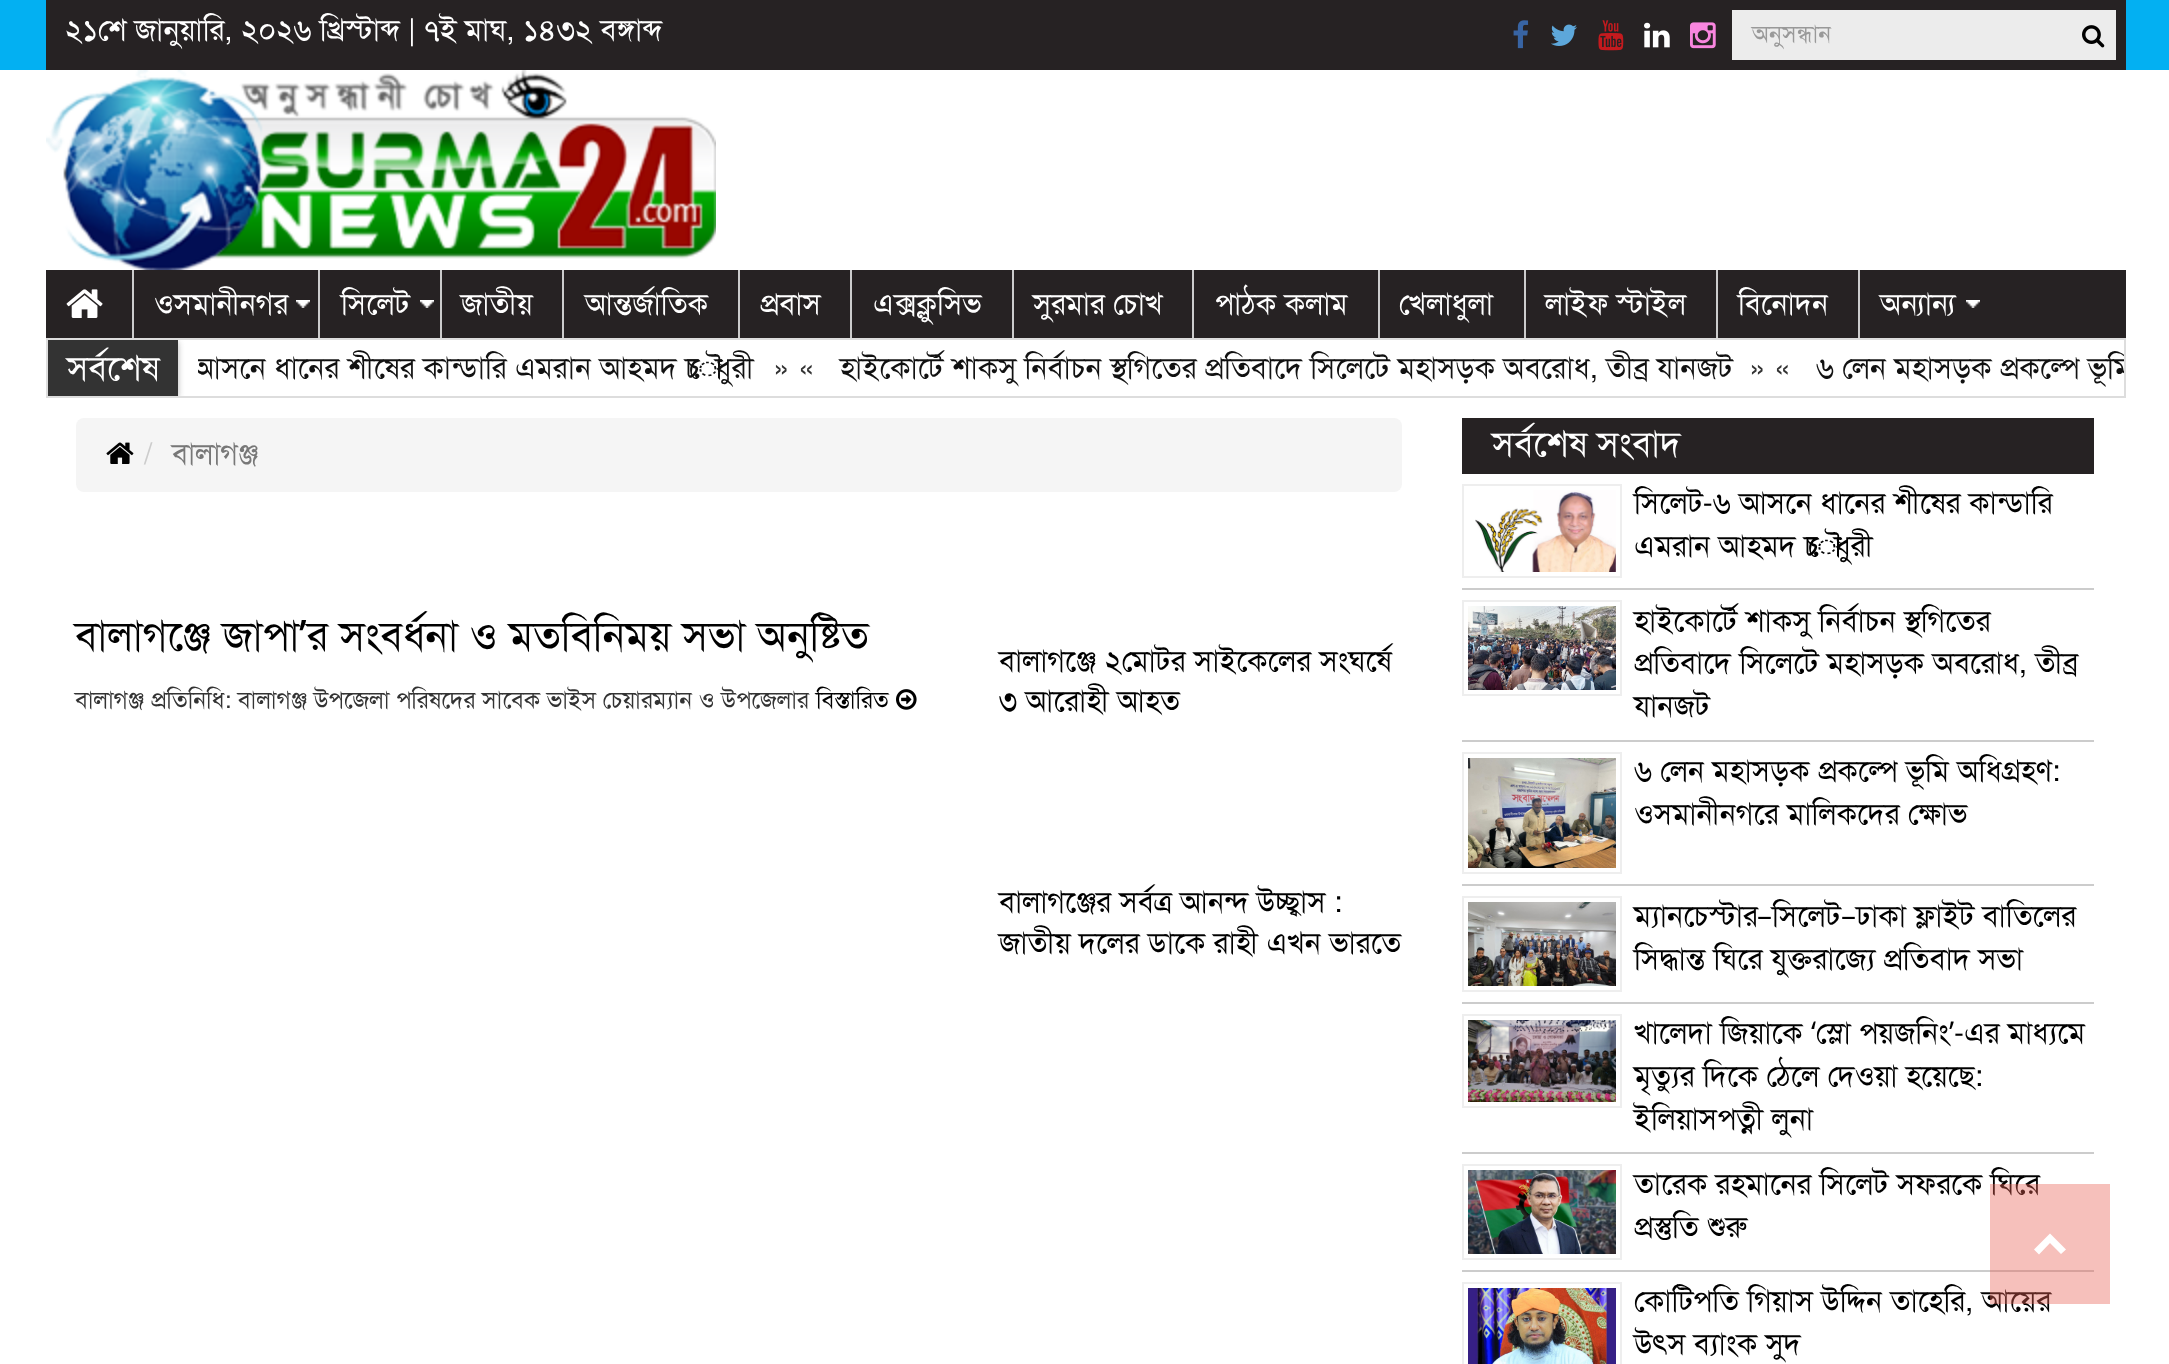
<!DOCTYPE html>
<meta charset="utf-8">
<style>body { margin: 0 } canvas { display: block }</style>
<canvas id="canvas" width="2169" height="1364"></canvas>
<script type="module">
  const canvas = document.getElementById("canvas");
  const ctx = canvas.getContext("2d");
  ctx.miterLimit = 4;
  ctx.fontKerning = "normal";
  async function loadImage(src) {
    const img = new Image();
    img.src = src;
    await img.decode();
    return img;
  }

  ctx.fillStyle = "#ffffff";
  ctx.fillRect(0, 0, 2169, 1364);
  ctx.fillStyle = "#03b0f2";
  ctx.fillRect(0, 0, 2169, 70);
  ctx.fillStyle = "#262223";
  ctx.fillRect(46, 0, 2080, 70);
  ctx.font = "30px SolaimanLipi";
  ctx.fillStyle = "#ffffff";
  ctx.fillText("২১শে জানুয়ারি, ২০২৬ খ্রিস্টাব্দ | ৭ই মাঘ, ১৪৩২ বঙ্গাব্দ", 65, 40);
  ctx.drawImage(await loadImage("img1.png"), 1513, 20, 16, 29);
  ctx.drawImage(await loadImage("img2.png"), 1551, 24, 26, 22);
  ctx.drawImage(await loadImage("img3.png"), 1598, 20, 26, 31);
  ctx.drawImage(await loadImage("img4.png"), 1644, 22, 26, 26);
  ctx.drawImage(await loadImage("img5.png"), 1690, 22, 26, 27);
  ctx.fillStyle = "#ececec";
  ctx.fillRect(1732, 10, 384, 50);
  ctx.font = "24px SolaimanLipi";
  ctx.fillStyle = "#999999";
  ctx.fillText("অনুসন্ধান", 1752, 42);
  ctx.drawImage(await loadImage("img6.png"), 2082, 25, 23, 23);
  ctx.drawImage(await loadImage("img7.png"), 46, 70, 670, 200);
  ctx.fillStyle = "#262223";
  ctx.fillRect(46, 270, 2080, 68);
  ctx.fillStyle = "#cccccc";
  ctx.fillRect(132, 270, 2, 68);
  ctx.drawImage(await loadImage("img8.png"), 66, 289, 37, 29);
  ctx.drawImage(await loadImage("img9.png"), 296, 300, 14, 8);
  ctx.fillRect(318, 270, 2, 68);
  ctx.font = "30px SolaimanLipi";
  ctx.fillStyle = "#ffffff";
  ctx.fillText("ওসমানীনগর", 154, 314);
  ctx.drawImage(await loadImage("img9.png"), 420, 300, 14, 8);
  ctx.fillStyle = "#cccccc";
  ctx.fillRect(440, 270, 2, 68);
  ctx.fillStyle = "#ffffff";
  ctx.fillText("সিলেট", 341, 314);
  ctx.fillStyle = "#cccccc";
  ctx.fillRect(562, 270, 2, 68);
  ctx.fillStyle = "#ffffff";
  ctx.fillText("জাতীয়", 461, 314);
  ctx.fillStyle = "#cccccc";
  ctx.fillRect(738, 270, 2, 68);
  ctx.fillStyle = "#ffffff";
  ctx.fillText("আন্তর্জাতিক", 585, 314);
  ctx.fillStyle = "#cccccc";
  ctx.fillRect(850, 270, 2, 68);
  ctx.fillStyle = "#ffffff";
  ctx.fillText("প্রবাস", 760, 314);
  ctx.fillStyle = "#cccccc";
  ctx.fillRect(1012, 270, 2, 68);
  ctx.fillStyle = "#ffffff";
  ctx.fillText("এক্সক্লুসিভ", 873, 314);
  ctx.fillStyle = "#cccccc";
  ctx.fillRect(1192, 270, 2, 68);
  ctx.fillStyle = "#ffffff";
  ctx.fillText("সুরমার চোখ", 1033, 314);
  ctx.fillStyle = "#cccccc";
  ctx.fillRect(1378, 270, 2, 68);
  ctx.fillStyle = "#ffffff";
  ctx.fillText("পাঠক কলাম", 1215, 314);
  ctx.fillStyle = "#cccccc";
  ctx.fillRect(1524, 270, 2, 68);
  ctx.fillStyle = "#ffffff";
  ctx.fillText("খেলাধুলা", 1399, 314);
  ctx.fillStyle = "#cccccc";
  ctx.fillRect(1716, 270, 2, 68);
  ctx.fillStyle = "#ffffff";
  ctx.fillText("লাইফ স্টাইল", 1545, 314);
  ctx.fillStyle = "#cccccc";
  ctx.fillRect(1858, 270, 2, 68);
  ctx.fillStyle = "#ffffff";
  ctx.fillText("বিনোদন", 1738, 314);
  ctx.drawImage(await loadImage("img9.png"), 1966, 300, 14, 8);
  ctx.fillText("অন্যান্য", 1880, 314);
  ctx.strokeStyle = "#dddddd";
  ctx.lineWidth = 2;
  ctx.strokeRect(47, 339, 2078, 58);
  ctx.save();
  ctx.beginPath();
  ctx.rect(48, 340, 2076, 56);
  ctx.clip();
  ctx.fillStyle = "#b5b5b5";
  ctx.filter = "blur(3px)";
  ctx.beginPath();
  ctx.rect(48, 342, 130, 56);
  ctx.fill();
  ctx.filter = "none";
  ctx.restore();
  ctx.fillStyle = "#333333";
  ctx.fillRect(48, 340, 130, 56);
  ctx.font = "35px SolaimanLipi";
  ctx.fillStyle = "#ffffff";
  ctx.fillText("সর্বশেষ", 67, 380);
  ctx.save();
  ctx.beginPath();
  ctx.rect(198, 340, 1926, 50);
  ctx.clip();
  ctx.font = "30px SolaimanLipi";
  ctx.fillStyle = "#111111";
  ctx.fillText("আসনে ধানের শীষের কান্ডারি এমরান আহমদ চৌধুরী", 193, 378);
  ctx.restore();
  ctx.font = "30px SolaimanLipi";
  ctx.fillStyle = "#333333";
  ctx.fillText("» «", 773, 378);
  ctx.fillStyle = "#111111";
  ctx.fillText("হাইকোর্টে শাকসু নির্বাচন স্থগিতের প্রতিবাদে সিলেটে মহাসড়ক অবরোধ, তীব্র যানজট", 840, 378);
  ctx.fillStyle = "#333333";
  ctx.fillText("» «", 1749, 378);
  ctx.save();
  ctx.beginPath();
  ctx.rect(198, 340, 1926, 50);
  ctx.clip();
  ctx.fillStyle = "#111111";
  ctx.fillText("৬ লেন মহাসড়ক প্রকল্পে ভূমি", 1816, 378);
  ctx.restore();
  ctx.fillStyle = "#f5f5f5";
  ctx.beginPath();
  ctx.roundRect(76, 418, 1326, 74, 8);
  ctx.fill();
  ctx.drawImage(await loadImage("img10.png"), 106, 442, 28, 22);
  ctx.fillStyle = "#cccccc";
  ctx.fillText("/", 143, 464);
  ctx.fillStyle = "#777777";
  ctx.fillText("বালাগঞ্জ", 172, 464);
  ctx.font = "42px SolaimanLipi";
  ctx.fillStyle = "#000000";
  ctx.fillText("বালাগঞ্জে জাপা", 75, 650);
  ctx.font = "500 42px Open Sans";
  ctx.fillText("’", 299, 650);
  ctx.font = "42px SolaimanLipi";
  ctx.fillText("র সংবর্ধনা ও মতবিনিময় সভা অনুষ্টিত", 307, 650);
  ctx.font = "24px SolaimanLipi";
  ctx.fillStyle = "#333333";
  ctx.fillText("বালাগঞ্জ প্রতিনিধি: বালাগঞ্জ উপজেলা পরিষদের সাবেক ভাইস চেয়ারম্যান ও উপজেলার", 75, 708);
  ctx.fillStyle = "#000000";
  ctx.fillText("বিস্তারিত", 816, 708);
  ctx.drawImage(await loadImage("img11.png"), 896, 689, 21, 21);
  ctx.font = "30px SolaimanLipi";
  ctx.fillText("বালাগঞ্জে ২মোটর সাইকেলের সংঘর্ষে", 999, 671);
  ctx.fillText("৩ আরোহী আহত", 999, 711);
  ctx.fillText("বালাগঞ্জের সর্বত্র আনন্দ উচ্ছ্বাস :", 999, 912);
  ctx.fillText("জাতীয় দলের ডাকে রাহী এখন ভারতে", 999, 953);
  ctx.fillStyle = "#262223";
  ctx.fillRect(1462, 418, 632, 56);
  ctx.font = "36px SolaimanLipi";
  ctx.fillStyle = "#ffffff";
  ctx.fillText("সর্বশেষ সংবাদ", 1492, 456);
  ctx.fillStyle = "#cccccc";
  ctx.fillRect(1462, 588, 632, 2);
  ctx.strokeStyle = "#eeeeee";
  ctx.strokeRect(1463, 485, 158, 92);
  ctx.drawImage(await loadImage("img12.png"), 1475, 490, 141, 82);
  ctx.font = "30px SolaimanLipi";
  ctx.fillStyle = "#000000";
  ctx.fillText("সিলেট-৬ আসনে ধানের শীষের কান্ডারি", 1634, 513);
  ctx.fillText("এমরান আহমদ চৌধুরী", 1634, 556);
  ctx.fillStyle = "#cccccc";
  ctx.fillRect(1462, 740, 632, 2);
  ctx.strokeRect(1463, 601, 158, 94);
  ctx.drawImage(await loadImage("img13.png"), 1468, 606, 148, 84);
  ctx.fillStyle = "#000000";
  ctx.fillText("হাইকোর্টে শাকসু নির্বাচন স্থগিতের", 1634, 631);
  ctx.fillText("প্রতিবাদে সিলেটে মহাসড়ক অবরোধ, তীব্র", 1634, 673);
  ctx.fillText("যানজট", 1634, 716);
  ctx.fillStyle = "#cccccc";
  ctx.fillRect(1462, 884, 632, 2);
  ctx.strokeRect(1463, 753, 158, 120);
  ctx.drawImage(await loadImage("img14.png"), 1468, 758, 148, 110);
  ctx.fillStyle = "#000000";
  ctx.fillText("৬ লেন মহাসড়ক প্রকল্পে ভূমি অধিগ্রহণ:", 1634, 781);
  ctx.fillText("ওসমানীনগরে মালিকদের ক্ষোভ", 1634, 824);
  ctx.fillStyle = "#cccccc";
  ctx.fillRect(1462, 1002, 632, 2);
  ctx.strokeRect(1463, 897, 158, 94);
  ctx.drawImage(await loadImage("img15.png"), 1468, 902, 148, 84);
  ctx.fillStyle = "#000000";
  ctx.fillText("ম্যানচেস্টার", 1634, 926);
  ctx.font = "30px Open Sans";
  ctx.fillText("–", 1757, 926);
  ctx.font = "30px SolaimanLipi";
  ctx.fillText("সিলেট", 1772, 926);
  ctx.font = "30px Open Sans";
  ctx.fillText("–", 1841, 926);
  ctx.font = "30px SolaimanLipi";
  ctx.fillText("ঢাকা ফ্লাইট বাতিলের", 1856, 926);
  ctx.fillText("সিদ্ধান্ত ঘিরে যুক্তরাজ্যে প্রতিবাদ সভা", 1634, 969);
  ctx.fillStyle = "#cccccc";
  ctx.fillRect(1462, 1152, 632, 2);
  ctx.strokeRect(1463, 1015, 158, 92);
  ctx.drawImage(await loadImage("img16.png"), 1468, 1020, 148, 82);
  ctx.fillStyle = "#000000";
  ctx.fillText("খালেদা জিয়াকে", 1634, 1043);
  ctx.font = "30px Open Sans";
  ctx.fillText("‘", 1811, 1043);
  ctx.font = "30px SolaimanLipi";
  ctx.fillText("স্লো পয়জনিং", 1816, 1043);
  ctx.font = "30px Open Sans";
  ctx.fillText("’", 1949, 1043);
  ctx.font = "30px SolaimanLipi";
  ctx.fillText("-এর মাধ্যমে", 1954, 1043);
  ctx.fillText("মৃত্যুর দিকে ঠেলে দেওয়া হয়েছে:", 1634, 1086);
  ctx.fillText("ইলিয়াসপত্নী লুনা", 1634, 1129);
  ctx.fillStyle = "#cccccc";
  ctx.fillRect(1462, 1270, 632, 2);
  ctx.strokeRect(1463, 1165, 158, 94);
  ctx.drawImage(await loadImage("img17.png"), 1468, 1170, 148, 84);
  ctx.fillStyle = "#000000";
  ctx.fillText("তারেক রহমানের সিলেট সফরকে ঘিরে", 1634, 1194);
  ctx.fillText("প্রস্তুতি শুরু", 1634, 1237);
  ctx.strokeRect(1463, 1283, 158, 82);
  ctx.drawImage(await loadImage("img18.png"), 1468, 1288, 148, 76);
  ctx.fillText("কোটিপতি গিয়াস উদ্দিন তাহেরি, আয়ের", 1634, 1311);
  ctx.fillText("উৎস ব্যাংক সুদ", 1634, 1354);
  ctx.fillStyle = "rgba(232, 98, 86, 0.4)";
  ctx.fillRect(1990, 1184, 120, 120);
  ctx.fillStyle = "#ffffff";
  ctx.beginPath();
  ctx.moveTo(2050, 1233.5);
  ctx.lineTo(2066, 1249.5);
  ctx.lineTo(2061, 1254);
  ctx.lineTo(2050, 1243);
  ctx.lineTo(2039, 1254.5);
  ctx.lineTo(2034, 1249.5);
  ctx.closePath();
  ctx.fill();
</script>
